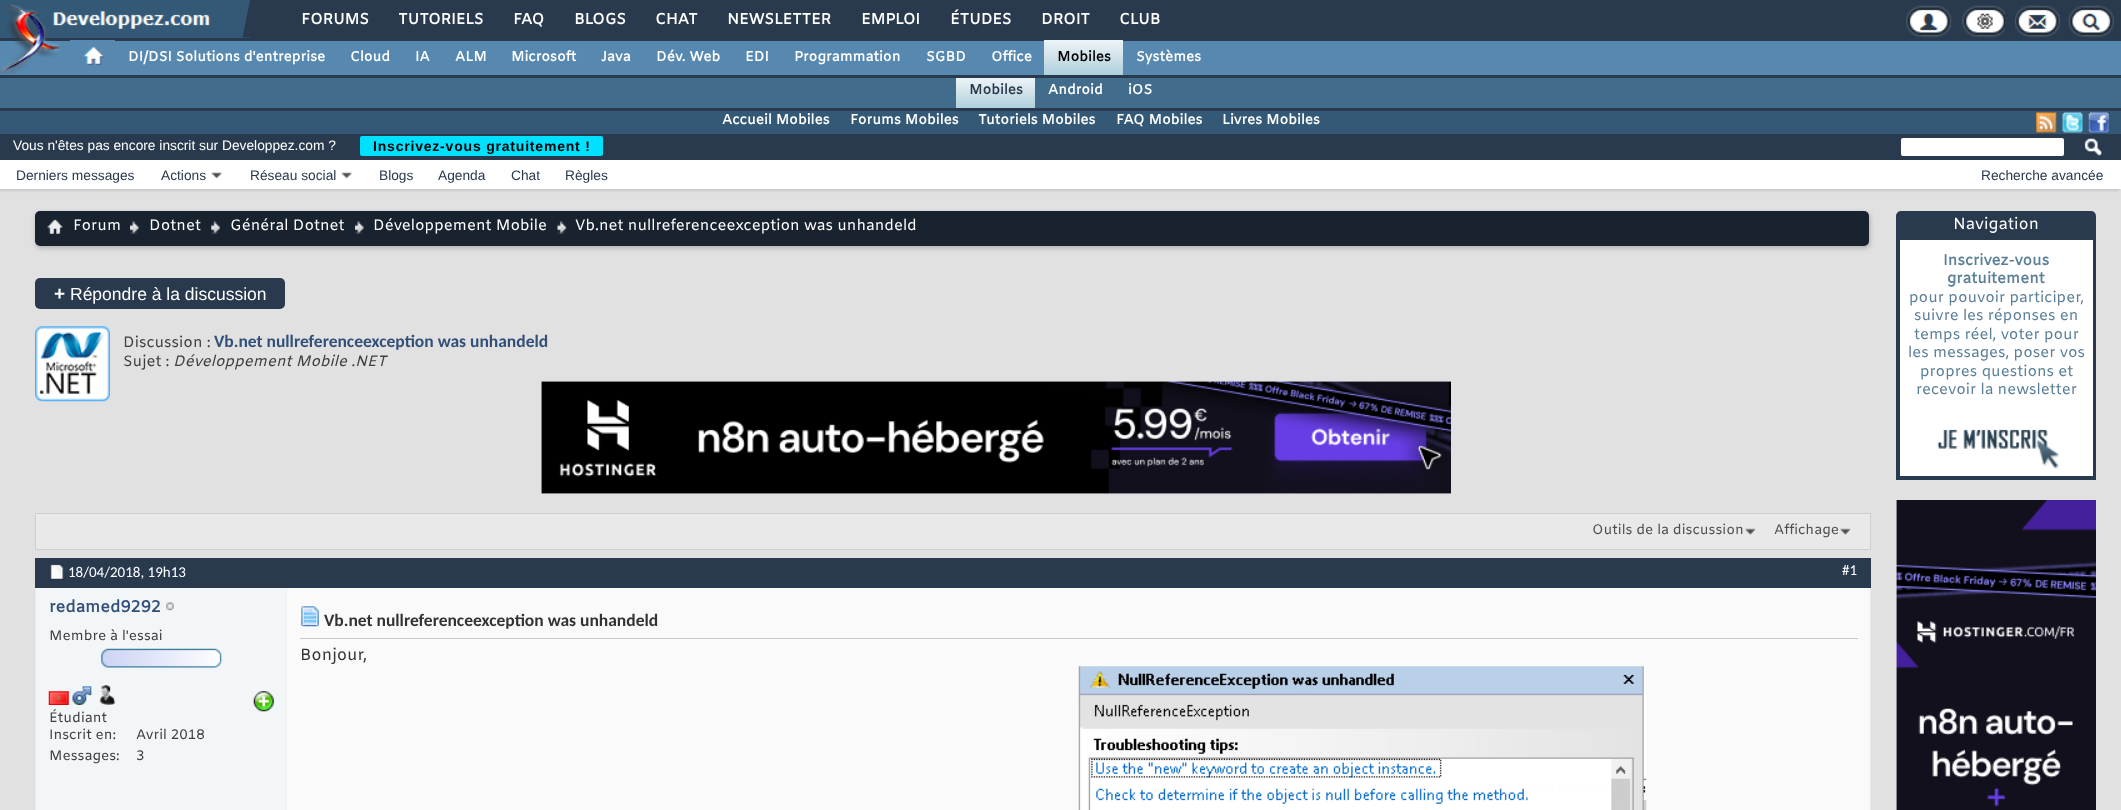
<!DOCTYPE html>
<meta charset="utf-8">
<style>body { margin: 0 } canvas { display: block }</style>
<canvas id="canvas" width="2121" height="810"></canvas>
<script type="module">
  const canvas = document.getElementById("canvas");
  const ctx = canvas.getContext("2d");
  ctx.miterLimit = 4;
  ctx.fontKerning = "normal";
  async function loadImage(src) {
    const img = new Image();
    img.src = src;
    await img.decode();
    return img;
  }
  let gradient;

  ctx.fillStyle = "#293a4e";
  ctx.fillRect(0, 0, 2121, 810);
  ctx.fillStyle = "#345976";
  ctx.fillRect(0, 0, 250, 38);
  ctx.drawImage(await loadImage("img2.png"), 52, 11, 159, 18);
  ctx.fillStyle = "#5789b0";
  ctx.fillRect(0, 41, 2121, 34);
  ctx.drawImage(await loadImage("img1.png"), 0, 5, 60, 69);
  ctx.fillStyle = "#293a4e";
  ctx.beginPath();
  ctx.moveTo(250, 37.5);
  ctx.lineTo(242.5, 37.5);
  ctx.lineTo(250, 0);
  ctx.closePath();
  ctx.fill();
  ctx.letterSpacing = "-0.25px";
  ctx.font = "bold 15.25px Amiko";
  ctx.fillStyle = "#ffffff";
  ctx.fillText("FORUMS", 301, 24);
  ctx.fillText("TUTORIELS", 398, 24);
  ctx.fillText("FAQ", 513, 24);
  ctx.fillText("BLOGS", 574, 24);
  ctx.fillText("CHAT", 655, 24);
  ctx.fillText("NEWSLETTER", 727, 24);
  ctx.fillText("EMPLOI", 861, 24);
  ctx.fillText("ÉTUDES", 950, 24);
  ctx.fillText("DROIT", 1041, 24);
  ctx.fillText("CLUB", 1119, 24);
  ctx.drawImage(await loadImage("img3.png"), 1906, 5, 46, 33);
  ctx.drawImage(await loadImage("img4.png"), 1961, 5, 44, 33);
  ctx.drawImage(await loadImage("img5.png"), 2015, 5, 45, 33);
  ctx.drawImage(await loadImage("img6.png"), 2068, 5, 46, 33);
  ctx.drawImage(await loadImage("img7.png"), 70, 40, 45, 26);
  ctx.letterSpacing = "0px";
  ctx.font = "bold 13.75px Amiko";
  ctx.fillText("DI/DSI Solutions d'entreprise", 128, 61);
  ctx.fillText("Cloud", 350, 61);
  ctx.fillText("IA", 415, 61);
  ctx.fillText("ALM", 455, 61);
  ctx.fillText("Microsoft", 511, 61);
  ctx.fillText("Java", 601, 61);
  ctx.fillText("Dév. Web", 656, 61);
  ctx.fillText("EDI", 745, 61);
  ctx.fillText("Programmation", 794, 61);
  ctx.fillText("SGBD", 926, 61);
  ctx.fillText("Office", 991, 61);
  gradient = ctx.createLinearGradient(1083, 40, 1083, 75);
  gradient.addColorStop(0, "#eaf5f8");
  gradient.addColorStop(0.37, "#d8e6ec");
  gradient.addColorStop(1, "#aed1dd");
  ctx.fillStyle = gradient;
  ctx.fillRect(1044, 40, 79, 35);
  ctx.fillStyle = "#000000";
  ctx.fillText("Mobiles", 1057, 61);
  ctx.fillStyle = "#ffffff";
  ctx.fillText("Systèmes", 1136, 61);
  ctx.fillStyle = "#426c8c";
  ctx.fillRect(0, 78, 2121, 30);
  gradient = ctx.createLinearGradient(996, 78, 996, 108);
  gradient.addColorStop(0, "#eaf5f8");
  gradient.addColorStop(0.37, "#d8e6ec");
  gradient.addColorStop(1, "#aed1dd");
  ctx.fillStyle = gradient;
  ctx.fillRect(956, 78, 79, 30);
  ctx.fillStyle = "#293a4e";
  ctx.fillText("Mobiles", 969, 94);
  ctx.fillStyle = "#ffffff";
  ctx.fillText("Android", 1048, 94);
  ctx.fillText("iOS", 1128, 94);
  ctx.fillStyle = "#345976";
  ctx.fillRect(0, 111, 2121, 23);
  ctx.fillStyle = "#ffffff";
  ctx.fillText("Accueil Mobiles", 722, 124);
  ctx.fillText("Forums Mobiles", 850, 124);
  ctx.fillText("Tutoriels Mobiles", 978, 124);
  ctx.fillText("FAQ Mobiles", 1116, 124);
  ctx.fillText("Livres Mobiles", 1222, 124);
  ctx.drawImage(await loadImage("img8.png"), 2036, 112, 21, 21);
  ctx.drawImage(await loadImage("img9.png"), 2062, 112, 21, 21);
  ctx.drawImage(await loadImage("img10.png"), 2088, 112, 21, 21);
  ctx.fillStyle = "#e1e1e2";
  ctx.fillRect(0, 189, 2121, 621);
  ctx.fillStyle = "#c8c8c8";
  ctx.filter = "blur(1px)";
  ctx.beginPath();
  ctx.rect(-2, 136, 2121, 55);
  ctx.fill();
  ctx.filter = "none";
  ctx.fillStyle = "#ffffff";
  ctx.fillRect(0, 160, 2121, 29);
  ctx.fillStyle = "#293a4e";
  ctx.fillRect(0, 134, 2121, 26);
  ctx.font = "13.75px Liberation Sans";
  ctx.fillStyle = "#ffffff";
  ctx.fillText("Vous n'êtes pas encore inscrit sur Developpez.com ?", 13, 150);
  ctx.fillStyle = "#00e0ff";
  ctx.beginPath();
  ctx.roundRect(360, 136, 243, 20, 2);
  ctx.fill();
  ctx.letterSpacing = "0.8px";
  ctx.font = "bold 14px Liberation Sans";
  ctx.fillStyle = "#000000";
  ctx.fillText("Inscrivez-vous gratuitement !", 373, 151);
  ctx.letterSpacing = "0px";
  ctx.font = "13.75px Liberation Sans";
  ctx.fillStyle = "#293a4e";
  ctx.fillText("Derniers messages", 16, 180);
  ctx.fillText("Actions", 161, 180);
  ctx.drawImage(await loadImage("img11.png"), 211, 171, 12, 8);
  ctx.fillText("Réseau social", 250, 180);
  ctx.drawImage(await loadImage("img11.png"), 341, 171, 12, 8);
  ctx.fillText("Blogs", 379, 180);
  ctx.fillText("Agenda", 438, 180);
  ctx.fillText("Chat", 511, 180);
  ctx.fillText("Règles", 565, 180);
  ctx.fillStyle = "#ffffff";
  ctx.beginPath();
  ctx.roundRect(1901, 138, 163, 18, 2);
  ctx.fill();
  ctx.drawImage(await loadImage("img12.png"), 2084, 138, 18, 19);
  ctx.fillStyle = "#293a4e";
  ctx.fillText("Recherche avancée", 1981, 180);
  ctx.fillStyle = "#adadad";
  ctx.filter = "blur(2.5px)";
  ctx.beginPath();
  ctx.roundRect(36, 213, 1834, 35, 5);
  ctx.fill();
  ctx.filter = "none";
  ctx.fillStyle = "#192330";
  ctx.beginPath();
  ctx.roundRect(35, 211, 1834, 35, 5);
  ctx.fill();
  ctx.drawImage(await loadImage("img13.png"), 47, 219, 16, 15);
  ctx.drawImage(await loadImage("img14.png"), 130, 221, 9, 13);
  ctx.font = "15px Amiko";
  ctx.fillStyle = "#ffffff";
  ctx.fillText("Forum", 73, 230);
  ctx.drawImage(await loadImage("img15.png"), 211, 221, 9, 13);
  ctx.fillText("Dotnet", 149, 230);
  ctx.drawImage(await loadImage("img14.png"), 355, 221, 9, 13);
  ctx.fillText("Général Dotnet", 230, 230);
  ctx.drawImage(await loadImage("img16.png"), 557, 221, 10, 13);
  ctx.fillText("Développement Mobile", 373, 230);
  ctx.fillText("Vb.net nullreferenceexception was unhandeld", 575, 230);
  ctx.fillStyle = "#293a4e";
  ctx.beginPath();
  ctx.roundRect(35, 278, 250, 31, 5);
  ctx.fill();
  ctx.font = "bold 19px Liberation Sans";
  ctx.fillStyle = "#ffffff";
  ctx.fillText("+", 54, 300);
  ctx.font = "17.5px Liberation Sans";
  ctx.fillText("Répondre à la discussion", 70, 300);
  ctx.drawImage(await loadImage("img17.png"), 35, 326, 75, 76);
  ctx.font = "15px Amiko";
  ctx.fillStyle = "#3e3e3e";
  ctx.fillText("Discussion :", 123, 347);
  ctx.font = "bold 17.5px Carlito";
  ctx.fillStyle = "#325078";
  ctx.fillText("Vb.net nullreferenceexception was unhandeld", 214, 347);
  ctx.font = "15px Amiko";
  ctx.fillStyle = "#3e3e3e";
  ctx.fillText("Sujet :", 123, 366);
  ctx.font = "italic 15px Amiko";
  ctx.fillText("Développement Mobile .NET", 173, 366);
  ctx.drawImage(await loadImage("img18.png"), 541, 381, 910, 113);
  ctx.fillStyle = "#e9e9e9";
  ctx.beginPath();
  ctx.rect(35.5, 513.5, 1835, 36);
  ctx.fill();
  ctx.strokeStyle = "#cecece";
  ctx.stroke();
  ctx.drawImage(await loadImage("img19.png"), 1745, 528, 11, 8);
  ctx.font = "13.75px Amiko";
  ctx.fillStyle = "#4e4e4e";
  ctx.fillText("Outils de la discussion", 1592, 534);
  ctx.drawImage(await loadImage("img19.png"), 1840, 528, 11, 8);
  ctx.fillText("Affichage", 1774, 534);
  ctx.strokeStyle = "#e9e9e9";
  ctx.strokeRect(35.5, 558.5, 1835, 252);
  ctx.fillStyle = "#293a4e";
  ctx.fillRect(35, 558, 1836, 30);
  ctx.drawImage(await loadImage("img20.png"), 50, 564, 14, 16);
  ctx.font = "15px Carlito";
  ctx.fillStyle = "#ffffff";
  ctx.fillText("18/04/2018, 19h13", 68, 577);
  ctx.fillText("#1", 1842, 575);
  ctx.fillStyle = "#f2f6f8";
  ctx.fillRect(36, 588, 250, 222);
  ctx.font = "bold 16.25px Amiko";
  ctx.fillStyle = "#325078";
  ctx.fillText("redamed9292", 49, 612);
  ctx.drawImage(await loadImage("img21.png"), 166, 602, 8, 9);
  ctx.font = "13.75px Amiko";
  ctx.fillStyle = "#3e3e3e";
  ctx.fillText("Membre à l'essai", 49, 640);
  ctx.drawImage(await loadImage("img22.png"), 101, 648, 121, 20);
  ctx.drawImage(await loadImage("img23.png"), 253, 691, 21, 21);
  ctx.drawImage(await loadImage("img24.png"), 48, 691, 21, 14);
  ctx.drawImage(await loadImage("img25.png"), 72, 686, 20, 19);
  ctx.drawImage(await loadImage("img26.png"), 99, 685, 17, 20);
  ctx.fillText("Étudiant", 49, 722);
  ctx.fillText("Inscrit en:", 49, 739);
  ctx.fillText("Avril 2018", 136, 739);
  ctx.fillText("Messages:", 49, 760);
  ctx.fillText("3", 136, 760);
  ctx.fillStyle = "#fafafa";
  ctx.fillRect(287, 588, 1583, 222);
  ctx.fillStyle = "#efefef";
  ctx.fillRect(286, 588, 1, 222);
  ctx.fillStyle = "#c8c8c8";
  ctx.fillRect(300, 638, 1558, 1);
  ctx.drawImage(await loadImage("img27.png"), 301, 606, 18, 21);
  ctx.font = "bold 17.5px Carlito";
  ctx.fillStyle = "#333333";
  ctx.fillText("Vb.net nullreferenceexception was unhandeld", 324, 626);
  ctx.font = "16.25px Amiko";
  ctx.fillText("Bonjour,", 300, 660);
  ctx.drawImage(await loadImage("img28.png"), 1078, 666, 569, 144);
  ctx.fillStyle = "#293a4e";
  ctx.beginPath();
  ctx.roundRect(1898, 213, 196, 265, [3, 3, 0, 0]);
  ctx.fill();
  ctx.strokeStyle = "#293a4e";
  ctx.lineWidth = 4;
  ctx.stroke();
  ctx.font = "16px Amiko";
  ctx.fillStyle = "#ffffff";
  ctx.fillText("Navigation", 1953, 229);
  ctx.fillRect(1900, 240, 193, 236);
  ctx.font = "bold 15px Amiko";
  ctx.fillStyle = "#5a7f97";
  ctx.fillText("Inscrivez-vous", 1943, 265);
  ctx.fillText("gratuitement", 1947, 283);
  ctx.font = "15px Amiko";
  ctx.fillText("pour pouvoir participer,", 1909, 302);
  ctx.fillText("suivre les réponses en", 1914, 320);
  ctx.fillText("temps réel, voter pour", 1914, 339);
  ctx.fillText("les messages, poser vos", 1908, 357);
  ctx.fillText("propres questions et", 1920, 376);
  ctx.fillText("recevoir la newsletter", 1916, 394);
  ctx.drawImage(await loadImage("img29.png"), 1937, 429, 123, 41);
  ctx.drawImage(await loadImage("img30.png"), 1896, 500, 200, 310);
</script>
